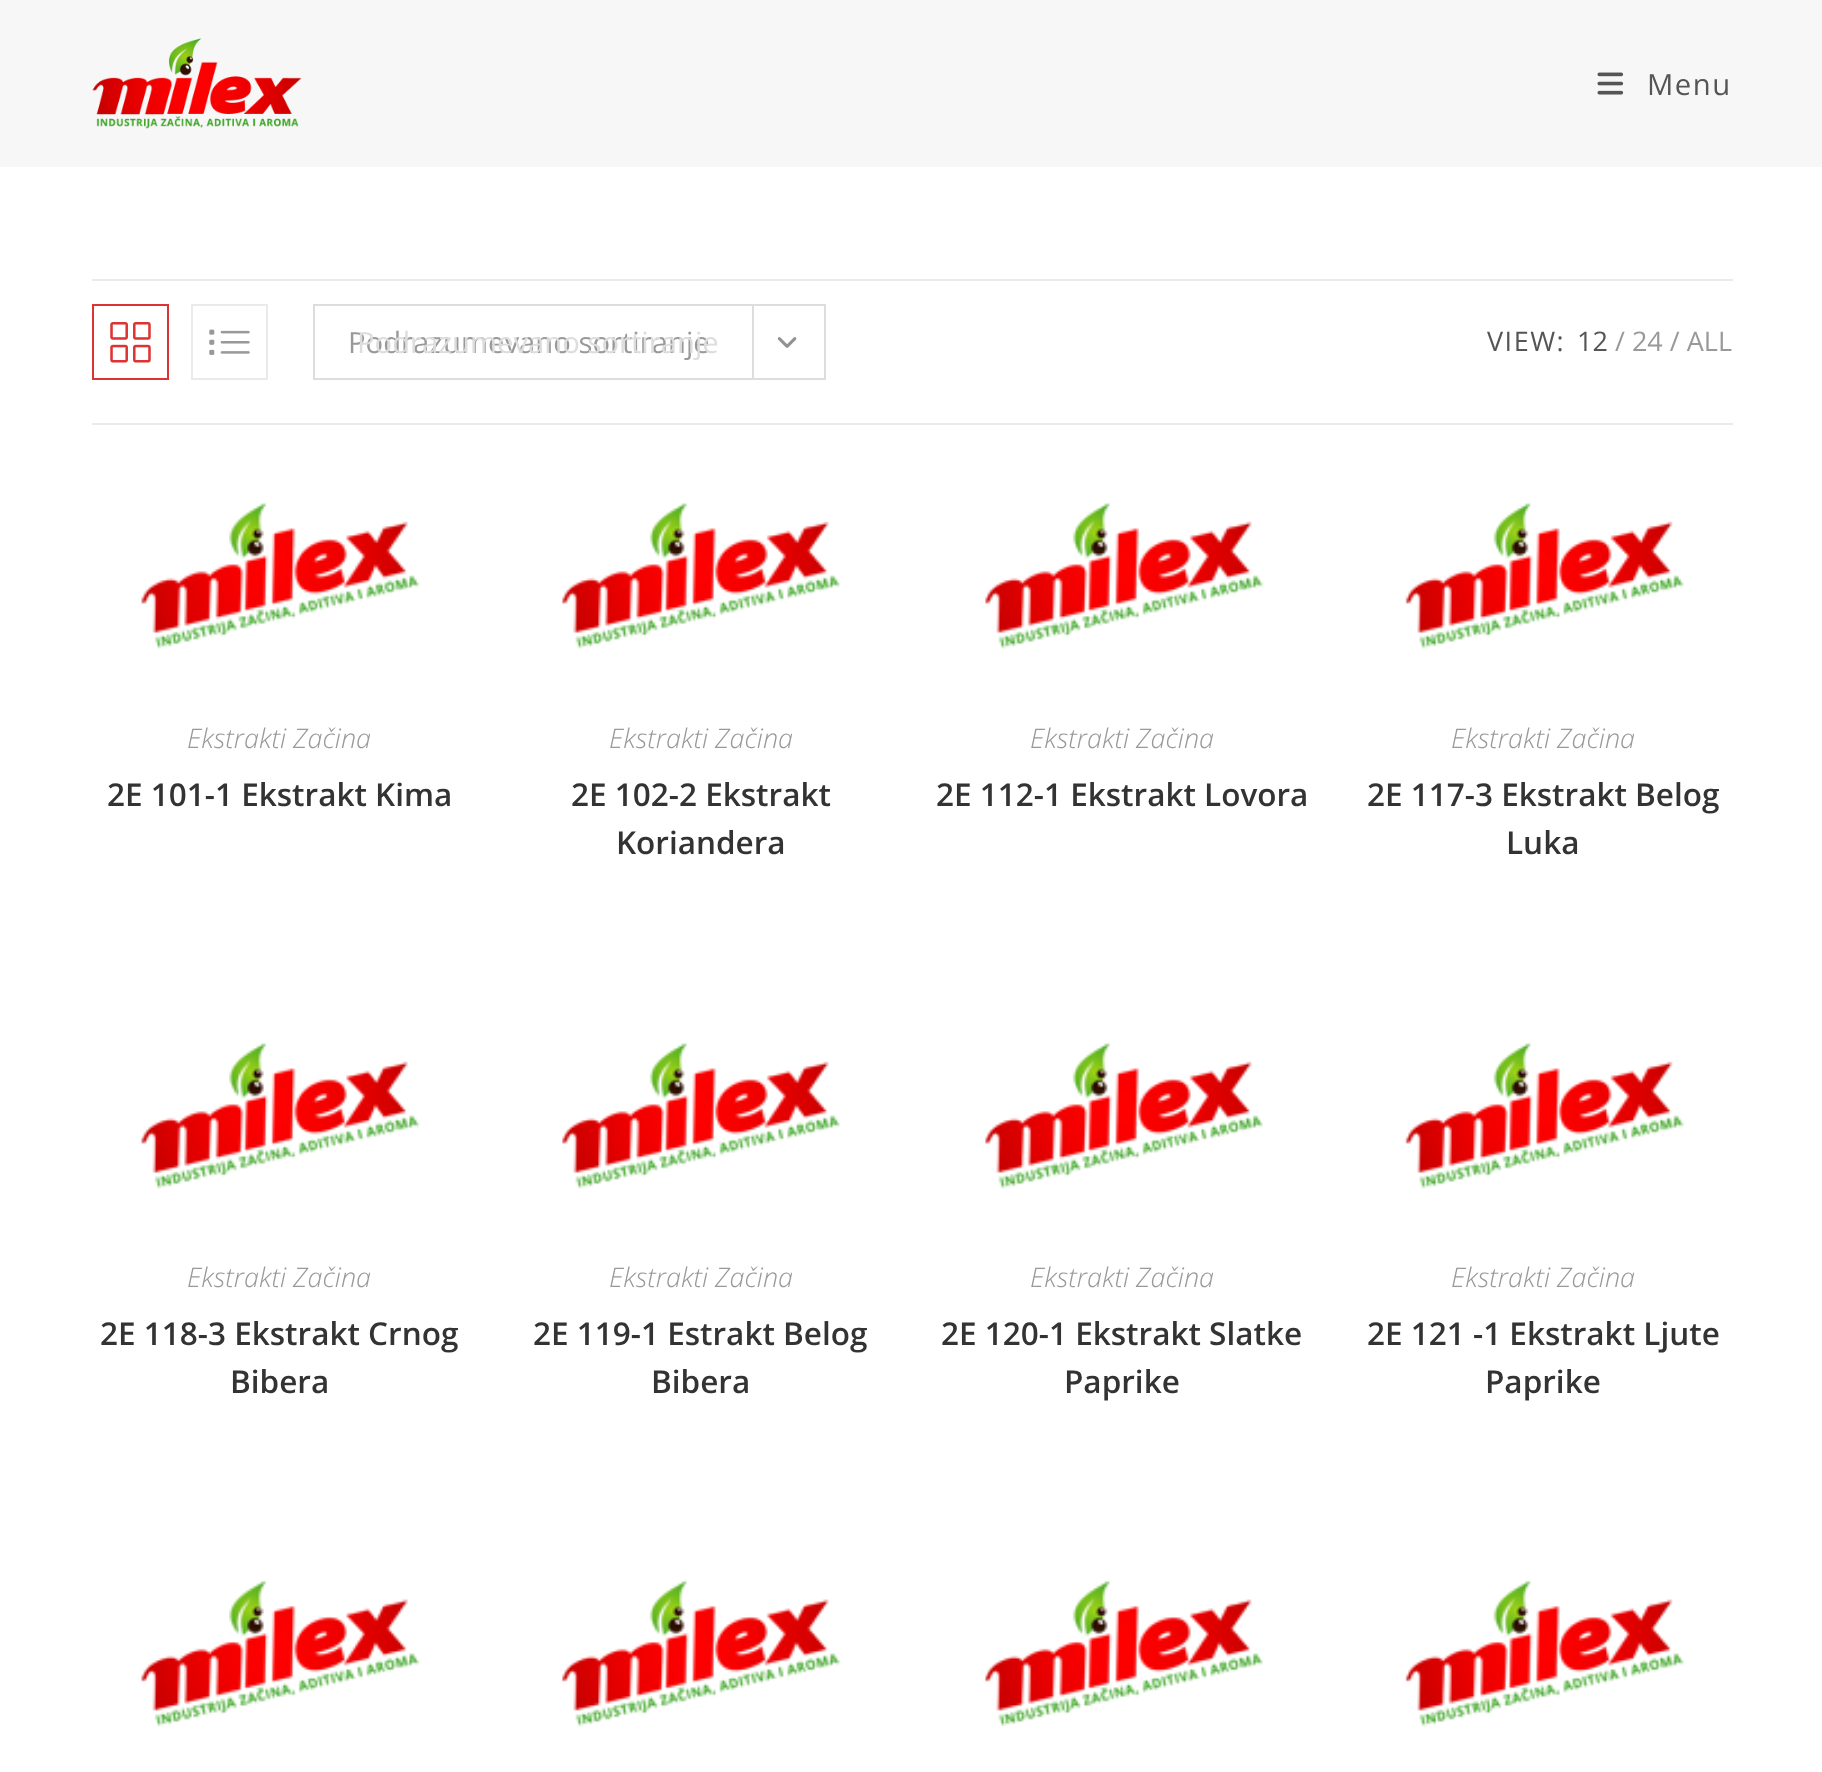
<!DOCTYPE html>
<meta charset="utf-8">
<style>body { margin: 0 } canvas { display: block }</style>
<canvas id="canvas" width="1822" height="1772"></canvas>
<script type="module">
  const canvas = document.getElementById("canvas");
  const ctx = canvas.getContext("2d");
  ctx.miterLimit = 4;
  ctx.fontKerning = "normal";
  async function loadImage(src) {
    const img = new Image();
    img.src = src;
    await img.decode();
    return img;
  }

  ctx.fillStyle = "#ffffff";
  ctx.fillRect(0, 0, 1822, 1772);
  ctx.fillStyle = "#f7f7f7";
  ctx.fillRect(0, 0, 1822, 167);
  ctx.drawImage(await loadImage("img1.png"), 92, 38, 210, 91);
  ctx.drawImage(await loadImage("img2.png"), 1597, 72, 27, 23);
  ctx.letterSpacing = "1.5px";
  ctx.font = "29.25px Open Sans";
  ctx.fillStyle = "#555555";
  ctx.fillText("Menu", 1647, 95);
  ctx.fillStyle = "#eaeaea";
  ctx.fillRect(92, 279, 1641, 2);
  ctx.fillRect(92, 423, 1641, 2);
  ctx.strokeStyle = "#dd3333";
  ctx.lineWidth = 2;
  ctx.strokeRect(93, 305, 75, 74);
  ctx.drawImage(await loadImage("img3.png"), 110, 322, 41, 41);
  ctx.strokeStyle = "#eaeaea";
  ctx.strokeRect(192, 305, 75, 74);
  ctx.drawImage(await loadImage("img4.png"), 209, 329, 41, 26);
  ctx.strokeStyle = "#dddddd";
  ctx.strokeRect(314, 305, 511, 74);
  ctx.letterSpacing = "0px";
  ctx.fillStyle = "#999999";
  ctx.fillText("Podrazumevano sortiranje", 348, 353);
  ctx.fillStyle = "#dddddd";
  ctx.fillRect(752, 306, 2, 72);
  ctx.drawImage(await loadImage("img5.png"), 777, 337, 20, 11);
  ctx.fillText("Podrazumevano sortiranje", 357, 353);
  ctx.letterSpacing = "1.5px";
  ctx.font = "27px Open Sans";
  ctx.fillStyle = "#555555";
  ctx.fillText("VIEW:", 1487, 351);
  ctx.letterSpacing = "0px";
  ctx.fillText("12", 1577, 351);
  ctx.fillStyle = "#999999";
  ctx.fillText("/ 24 / ALL", 1615, 351);
  ctx.drawImage(await loadImage("img6.png"), 140, 502, 280, 147);
  ctx.font = "italic 300 27px Open Sans";
  ctx.fillText("Ekstrakti Začina", 187, 748);
  ctx.font = "600 31.5px Open Sans";
  ctx.fillStyle = "#333333";
  ctx.fillText("2E 101-1 Ekstrakt Kima", 107, 806);
  ctx.drawImage(await loadImage("img7.png"), 561, 502, 279, 147);
  ctx.font = "italic 300 27px Open Sans";
  ctx.fillStyle = "#999999";
  ctx.fillText("Ekstrakti Začina", 609, 748);
  ctx.font = "600 31.5px Open Sans";
  ctx.fillStyle = "#333333";
  ctx.fillText("2E 102-2 Ekstrakt", 571, 806);
  ctx.fillText("Koriandera", 616, 854);
  ctx.drawImage(await loadImage("img8.png"), 984, 502, 279, 147);
  ctx.font = "italic 300 27px Open Sans";
  ctx.fillStyle = "#999999";
  ctx.fillText("Ekstrakti Začina", 1030, 748);
  ctx.font = "600 31.5px Open Sans";
  ctx.fillStyle = "#333333";
  ctx.fillText("2E 112-1 Ekstrakt Lovora", 936, 806);
  ctx.drawImage(await loadImage("img9.png"), 1405, 502, 279, 147);
  ctx.font = "italic 300 27px Open Sans";
  ctx.fillStyle = "#999999";
  ctx.fillText("Ekstrakti Začina", 1451, 748);
  ctx.font = "600 31.5px Open Sans";
  ctx.fillStyle = "#333333";
  ctx.fillText("2E 117-3 Ekstrakt Belog", 1367, 806);
  ctx.fillText("Luka", 1506, 854);
  ctx.drawImage(await loadImage("img6.png"), 140, 1042, 280, 147);
  ctx.font = "italic 300 27px Open Sans";
  ctx.fillStyle = "#999999";
  ctx.fillText("Ekstrakti Začina", 187, 1287);
  ctx.font = "600 31.5px Open Sans";
  ctx.fillStyle = "#333333";
  ctx.fillText("2E 118-3 Ekstrakt Crnog", 100, 1345);
  ctx.fillText("Bibera", 230, 1393);
  ctx.drawImage(await loadImage("img7.png"), 561, 1042, 279, 147);
  ctx.font = "italic 300 27px Open Sans";
  ctx.fillStyle = "#999999";
  ctx.fillText("Ekstrakti Začina", 609, 1287);
  ctx.font = "600 31.5px Open Sans";
  ctx.fillStyle = "#333333";
  ctx.fillText("2E 119-1 Estrakt Belog", 533, 1345);
  ctx.fillText("Bibera", 651, 1393);
  ctx.drawImage(await loadImage("img8.png"), 984, 1042, 279, 147);
  ctx.font = "italic 300 27px Open Sans";
  ctx.fillStyle = "#999999";
  ctx.fillText("Ekstrakti Začina", 1030, 1287);
  ctx.font = "600 31.5px Open Sans";
  ctx.fillStyle = "#333333";
  ctx.fillText("2E 120-1 Ekstrakt Slatke", 941, 1345);
  ctx.fillText("Paprike", 1064, 1393);
  ctx.drawImage(await loadImage("img9.png"), 1405, 1042, 279, 147);
  ctx.font = "italic 300 27px Open Sans";
  ctx.fillStyle = "#999999";
  ctx.fillText("Ekstrakti Začina", 1451, 1287);
  ctx.font = "600 31.5px Open Sans";
  ctx.fillStyle = "#333333";
  ctx.fillText("2E 121 -1 Ekstrakt Ljute", 1367, 1345);
  ctx.fillText("Paprike", 1485, 1393);
  ctx.drawImage(await loadImage("img10.png"), 140, 1579, 280, 148);
  ctx.drawImage(await loadImage("img11.png"), 561, 1579, 279, 148);
  ctx.drawImage(await loadImage("img12.png"), 984, 1579, 279, 148);
  ctx.drawImage(await loadImage("img13.png"), 1405, 1579, 279, 148);
</script>
